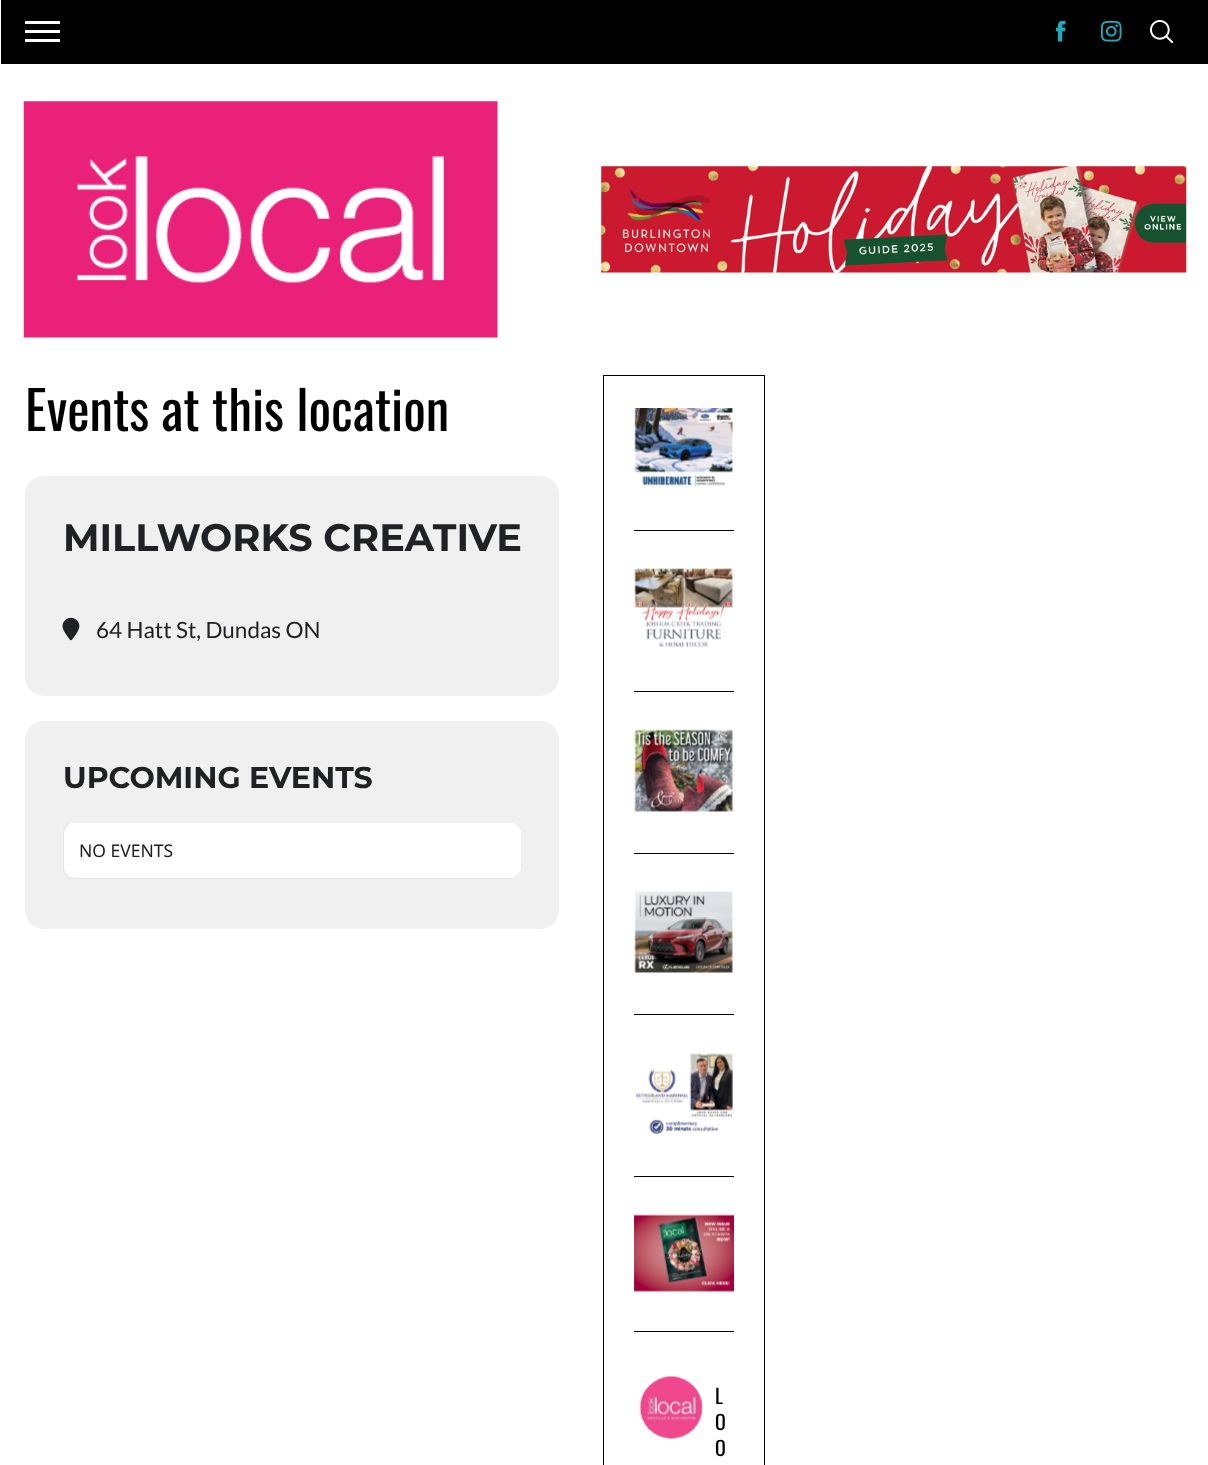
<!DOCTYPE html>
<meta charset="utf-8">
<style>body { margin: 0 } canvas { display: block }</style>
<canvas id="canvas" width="1208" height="1465"></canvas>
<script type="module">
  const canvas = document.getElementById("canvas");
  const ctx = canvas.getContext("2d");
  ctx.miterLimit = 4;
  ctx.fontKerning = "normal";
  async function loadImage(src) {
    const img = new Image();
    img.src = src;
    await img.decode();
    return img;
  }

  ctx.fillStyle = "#ffffff";
  ctx.fillRect(0, 0, 1208, 1465);
  ctx.fillStyle = "#000000";
  ctx.fillRect(1, 0, 1207, 64);
  ctx.fillStyle = "#ffffff";
  ctx.fillRect(25, 30, 35, 3);
  ctx.fillRect(25, 21, 35, 3);
  ctx.fillRect(25, 39, 35, 3);
  ctx.drawImage(await loadImage("img1.png"), 1055, 20, 11, 22);
  ctx.drawImage(await loadImage("img2.png"), 1100, 20, 22, 22);
  ctx.drawImage(await loadImage("img3.png"), 1150, 20, 23, 23);
  ctx.drawImage(await loadImage("img4.png"), 23, 101, 475, 237);
  ctx.drawImage(await loadImage("img5.png"), 601, 166, 586, 107);
  ctx.font = "53.25px Oswald";
  ctx.fillStyle = "#000000";
  ctx.fillText("Events at this location", 25, 431);
  ctx.fillStyle = "#f0f0f0";
  ctx.beginPath();
  ctx.roundRect(25, 476, 534, 220, 19);
  ctx.fill();
  ctx.font = "bold 38.25px Montserrat";
  ctx.fillStyle = "#202124";
  ctx.fillText("MILLWORKS CREATIVE", 63, 551);
  ctx.drawImage(await loadImage("img6.png"), 62, 617, 18, 24);
  ctx.font = "22.5px Lato";
  ctx.fillText("64 Hatt St, Dundas ON", 96, 638);
  ctx.fillStyle = "#f0f0f0";
  ctx.beginPath();
  ctx.roundRect(25, 721, 534, 208, 19);
  ctx.fill();
  ctx.font = "bold 30px Montserrat";
  ctx.fillStyle = "#202124";
  ctx.fillText("UPCOMING EVENTS", 63, 788);
  ctx.fillStyle = "#e5e5e5";
  ctx.beginPath();
  ctx.moveTo(509, 879);
  ctx.bezierCurveTo(516, 879, 521, 873, 521, 866);
  ctx.bezierCurveTo(521, 872, 516, 878, 509, 878);
  ctx.lineTo(75, 878);
  ctx.bezierCurveTo(69, 878, 64, 872, 64, 866);
  ctx.lineTo(64, 835);
  ctx.bezierCurveTo(64, 830, 66, 826, 70, 823);
  ctx.bezierCurveTo(66, 825, 63, 829, 63, 833);
  ctx.lineTo(63, 872);
  ctx.bezierCurveTo(66, 876, 70, 879, 75, 879);
  ctx.closePath();
  ctx.fill();
  ctx.fillStyle = "#ffffff";
  ctx.beginPath();
  ctx.moveTo(73, 823);
  ctx.lineTo(513, 823);
  ctx.bezierCurveTo(517, 825, 520, 828, 521, 832);
  ctx.lineTo(521, 868);
  ctx.bezierCurveTo(520, 874, 515, 878, 509, 878);
  ctx.lineTo(75, 878);
  ctx.bezierCurveTo(70, 878, 65, 874, 64, 869);
  ctx.lineTo(64, 832);
  ctx.bezierCurveTo(65, 828, 68, 824, 72, 823);
  ctx.closePath();
  ctx.fill();
  ctx.font = "17.5px Noto Sans";
  ctx.fillStyle = "#202124";
  ctx.fillText("NO EVENTS", 79, 857);
  ctx.strokeStyle = "#000000";
  ctx.strokeRect(603.5, 375.5, 161, 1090);
  ctx.fillStyle = "#000000";
  ctx.fillRect(634, 530, 100, 1);
  ctx.drawImage(await loadImage("img7.png"), 634, 408, 99, 79);
  ctx.fillRect(634, 691, 100, 1);
  ctx.drawImage(await loadImage("img8.png"), 634, 568, 99, 80);
  ctx.fillRect(634, 853, 100, 1);
  ctx.drawImage(await loadImage("img9.png"), 634, 729, 99, 83);
  ctx.fillRect(634, 1014, 100, 1);
  ctx.drawImage(await loadImage("img10.png"), 634, 891, 99, 82);
  ctx.fillRect(634, 1176, 100, 1);
  ctx.drawImage(await loadImage("img11.png"), 635, 1053, 98, 81);
  ctx.fillRect(634, 1331, 100, 1);
  ctx.drawImage(await loadImage("img12.png"), 634, 1214, 100, 78);
  ctx.drawImage(await loadImage("img13.png"), 639, 1376, 64, 63);
  ctx.letterSpacing = "1px";
  ctx.font = "20px Oswald";
  ctx.fillText("L", 715, 1404);
  ctx.fillText("O", 715, 1430);
  ctx.fillText("O", 715, 1456);
</script>
